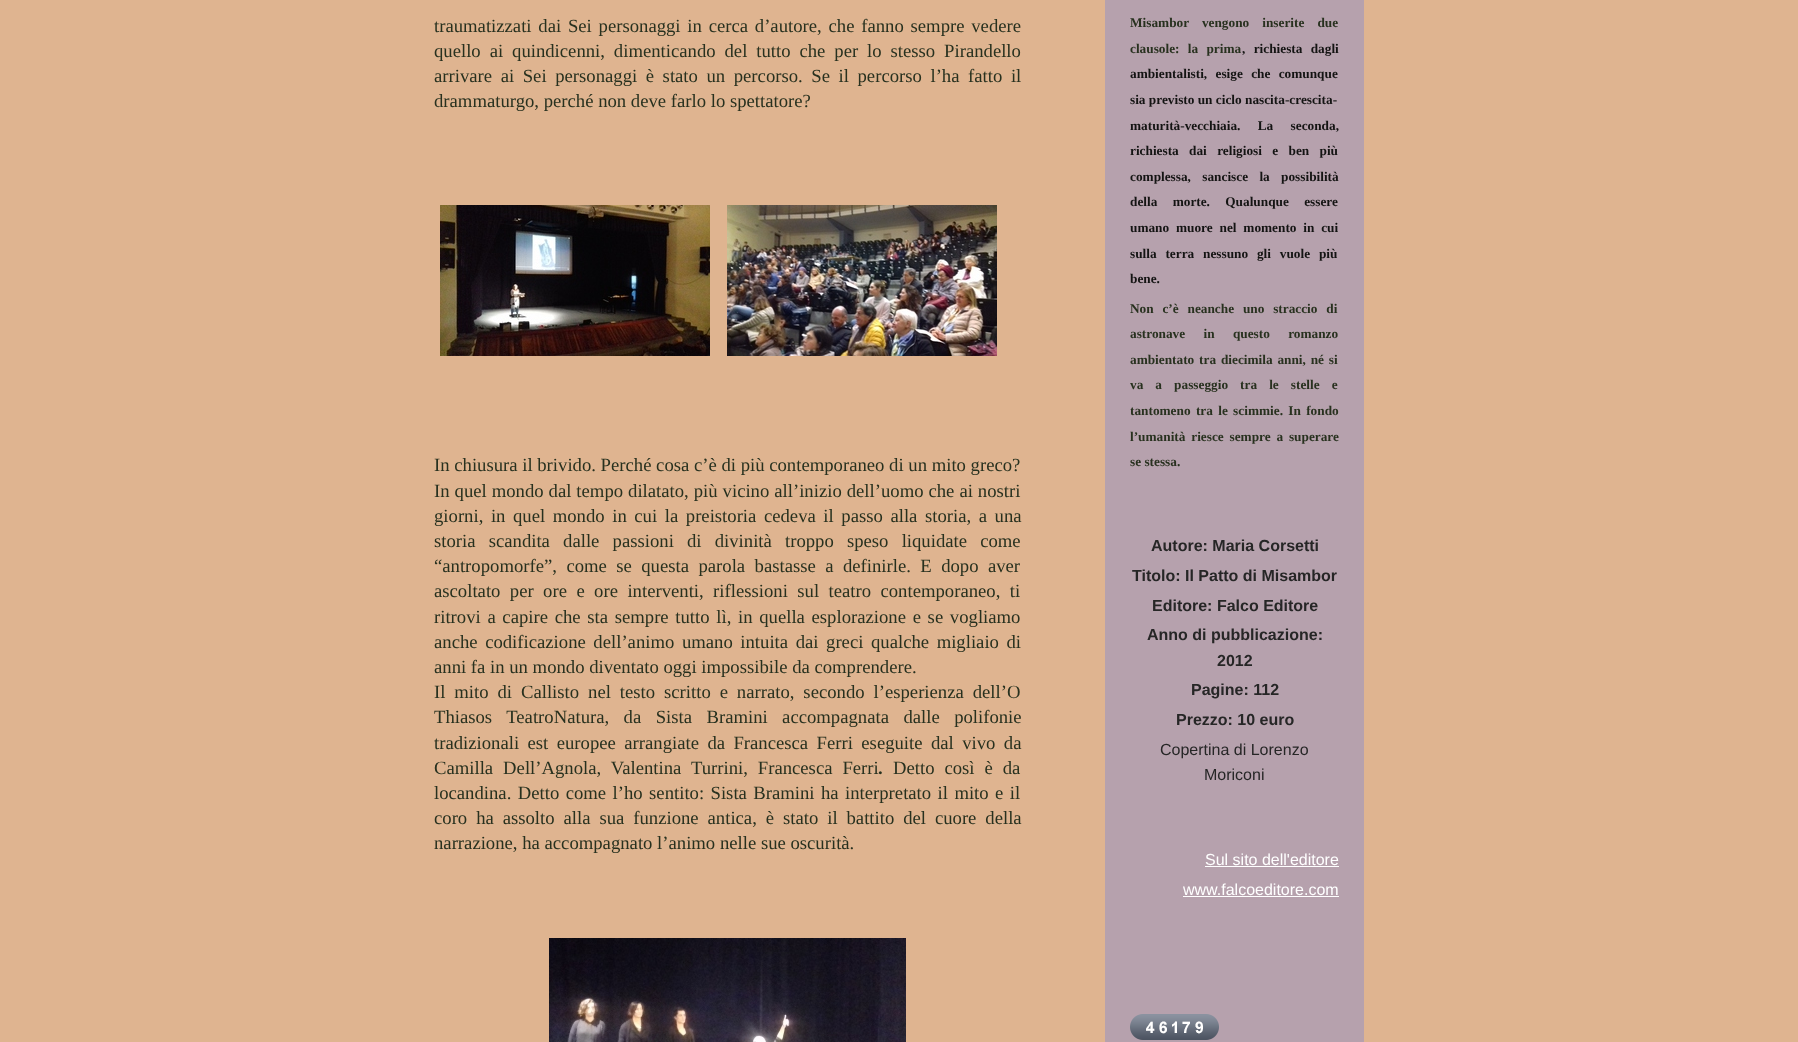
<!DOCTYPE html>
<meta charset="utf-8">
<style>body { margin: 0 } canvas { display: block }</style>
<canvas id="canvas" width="1798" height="1042"></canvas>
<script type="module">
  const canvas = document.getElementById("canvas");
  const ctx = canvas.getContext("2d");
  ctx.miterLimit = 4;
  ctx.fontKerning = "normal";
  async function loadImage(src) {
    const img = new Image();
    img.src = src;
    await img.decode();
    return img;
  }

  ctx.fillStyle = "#dfb490";
  ctx.fillRect(0, 0, 1798, 1042);
  ctx.wordSpacing = "2.1px";
  ctx.font = "18.7px Liberation Serif";
  ctx.fillStyle = "#28311f";
  ctx.fillText("traumatizzati dai Sei personaggi in cerca d’autore, che fanno sempre vedere", 434, 32);
  ctx.wordSpacing = "4.25px";
  ctx.fillText("quello ai quindicenni, dimenticando del tutto che per lo stesso Pirandello", 434, 57);
  ctx.wordSpacing = "3.9px";
  ctx.fillText("arrivare ai Sei personaggi è stato un percorso. Se il percorso l’ha fatto il", 434, 82);
  ctx.wordSpacing = "0px";
  ctx.fillText("drammaturgo, perché non deve farlo lo spettatore?", 434, 107);
  ctx.drawImage(await loadImage("img1.png"), 440, 205, 270, 151);
  ctx.drawImage(await loadImage("img2.png"), 727, 205, 270, 151);
  ctx.fillText("In chiusura il brivido. Perché cosa c’è di più contemporaneo di un mito greco?", 434, 471);
  ctx.wordSpacing = "0.3px";
  ctx.fillText("In quel mondo dal tempo dilatato, più vicino all’inizio dell’uomo che ai nostri", 434, 497);
  ctx.wordSpacing = "2.9px";
  ctx.fillText("giorni, in quel mondo in cui la preistoria cedeva il passo alla storia, a una", 434, 522);
  ctx.wordSpacing = "8.5px";
  ctx.fillText("storia scandita dalle passioni di divinità troppo speso liquidate come", 434, 547);
  ctx.wordSpacing = "4.75px";
  ctx.fillText("“antropomorfe”, come se questa parola bastasse a definirle. E dopo aver", 434, 572);
  ctx.fillText("ascoltato per ore e ore interventi, riflessioni sul teatro contemporaneo, ti", 434, 597);
  ctx.wordSpacing = "2px";
  ctx.fillText("ritrovi a capire che sta sempre tutto lì, in quella esplorazione e se vogliamo", 434, 623);
  ctx.wordSpacing = "2.9px";
  ctx.fillText("anche codificazione dell’animo umano intuita dai greci qualche migliaio di", 434, 648);
  ctx.wordSpacing = "0px";
  ctx.fillText("anni fa in un mondo diventato oggi impossibile da comprendere.", 434, 673);
  ctx.wordSpacing = "4.25px";
  ctx.fillText("Il mito di Callisto nel testo scritto e narrato, secondo l’esperienza dell’O", 434, 698);
  ctx.wordSpacing = "9.75px";
  ctx.fillText("Thiasos TeatroNatura, da Sista Bramini accompagnata dalle polifonie", 434, 723);
  ctx.wordSpacing = "3.75px";
  ctx.fillText("tradizionali est europee arrangiate da Francesca Ferri eseguite dal vivo da", 434, 749);
  ctx.wordSpacing = "5.25px";
  ctx.fillText("Camilla Dell’Agnola, Valentina Turrini, Francesca Ferri", 434, 774);
  ctx.wordSpacing = "0px";
  ctx.font = "bold 18.7px Liberation Serif";
  ctx.fillText(".", 878, 774);
  ctx.wordSpacing = "5.25px";
  ctx.font = "18.7px Liberation Serif";
  ctx.fillText("Detto così è da", 893, 774);
  ctx.wordSpacing = "1.75px";
  ctx.fillText("locandina. Detto come l’ho sentito: Sista Bramini ha interpretato il mito e il", 434, 799);
  ctx.wordSpacing = "4.25px";
  ctx.fillText("coro ha assolto alla sua funzione antica, è stato il battito del cuore della", 434, 824);
  ctx.wordSpacing = "0px";
  ctx.fillText("narrazione, ha accompagnato l’animo nelle sue oscurità.", 434, 849);
  ctx.drawImage(await loadImage("img3.png"), 549, 938, 357, 104);
  ctx.fillStyle = "#b6a1ad";
  ctx.fillRect(1105, 0, 259, 1042);
  ctx.wordSpacing = "9.75px";
  ctx.font = "bold 13.3px Liberation Serif";
  ctx.fillStyle = "#28311f";
  ctx.fillText("Misambor vengono inserite due", 1130, 27);
  ctx.wordSpacing = "5px";
  ctx.fillText("clausole: la prima", 1130, 53);
  ctx.fillStyle = "#141413";
  ctx.fillText(", richiesta dagli", 1242, 53);
  ctx.fillText("ambientalisti, esige che comunque", 1130, 78);
  ctx.wordSpacing = "0px";
  ctx.fillText("sia previsto un ciclo nascita-crescita-", 1130, 104);
  ctx.wordSpacing = "14px";
  ctx.fillText("maturità-vecchiaia. La seconda,", 1130, 130);
  ctx.wordSpacing = "7px";
  ctx.fillText("richiesta dai religiosi e ben più", 1130, 155);
  ctx.wordSpacing = "8px";
  ctx.fillText("complessa, sancisce la possibilità", 1130, 181);
  ctx.wordSpacing = "12px";
  ctx.fillText("della morte. Qualunque essere", 1130, 206);
  ctx.wordSpacing = "3.5px";
  ctx.fillText("umano muore nel momento in cui", 1130, 232);
  ctx.wordSpacing = "5.5px";
  ctx.fillText("sulla terra nessuno gli vuole più", 1130, 258);
  ctx.wordSpacing = "0px";
  ctx.fillText("bene.", 1130, 283);
  ctx.wordSpacing = "5.5px";
  ctx.fillStyle = "#28311f";
  ctx.fillText("Non c’è neanche uno straccio di", 1130, 313);
  ctx.wordSpacing = "15px";
  ctx.fillText("astronave in questo romanzo", 1130, 338);
  ctx.wordSpacing = "1.5px";
  ctx.fillText("ambientato tra diecimila anni, né si", 1130, 364);
  ctx.wordSpacing = "8.75px";
  ctx.fillText("va a passeggio tra le stelle e", 1130, 389);
  ctx.wordSpacing = "2px";
  ctx.fillText("tantomeno tra le scimmie. In fondo", 1130, 415);
  ctx.wordSpacing = "2.5px";
  ctx.fillText("l’umanità riesce sempre a superare", 1130, 441);
  ctx.wordSpacing = "0px";
  ctx.fillText("se stessa.", 1130, 466);
  ctx.font = "bold 16px Liberation Sans";
  ctx.fillStyle = "#262626";
  ctx.fillText("Autore: Maria Corsetti", 1151, 551);
  ctx.fillText("Titolo: Il Patto di Misambor", 1132, 581);
  ctx.fillText("Editore: Falco Editore", 1152, 611);
  ctx.fillText("Anno di pubblicazione:", 1147, 640);
  ctx.fillText("2012", 1217, 666);
  ctx.fillText("Pagine: 112", 1191, 695);
  ctx.fillText("Prezzo: 10 euro", 1176, 725);
  ctx.font = "16px Liberation Sans";
  ctx.fillText("Copertina di Lorenzo", 1160, 755);
  ctx.fillText("Moriconi", 1204, 780);
  ctx.fillStyle = "#ffffff";
  ctx.fillText("Sul sito dell'editore", 1205, 865);
  ctx.fillRect(1205, 866, 134, 1);
  ctx.fillText("www.falcoeditore.com", 1183, 895);
  ctx.fillRect(1183, 896, 156, 1);
  ctx.drawImage(await loadImage("img4.png"), 1130, 1014, 14, 26);
  ctx.drawImage(await loadImage("img5.png"), 1144, 1014, 13, 26);
  ctx.drawImage(await loadImage("img6.png"), 1157, 1014, 13, 26);
  ctx.drawImage(await loadImage("img7.png"), 1170, 1014, 10, 26);
  ctx.drawImage(await loadImage("img8.png"), 1180, 1014, 13, 26);
  ctx.drawImage(await loadImage("img9.png"), 1193, 1014, 13, 26);
  ctx.drawImage(await loadImage("img10.png"), 1206, 1014, 13, 26);
</script>
